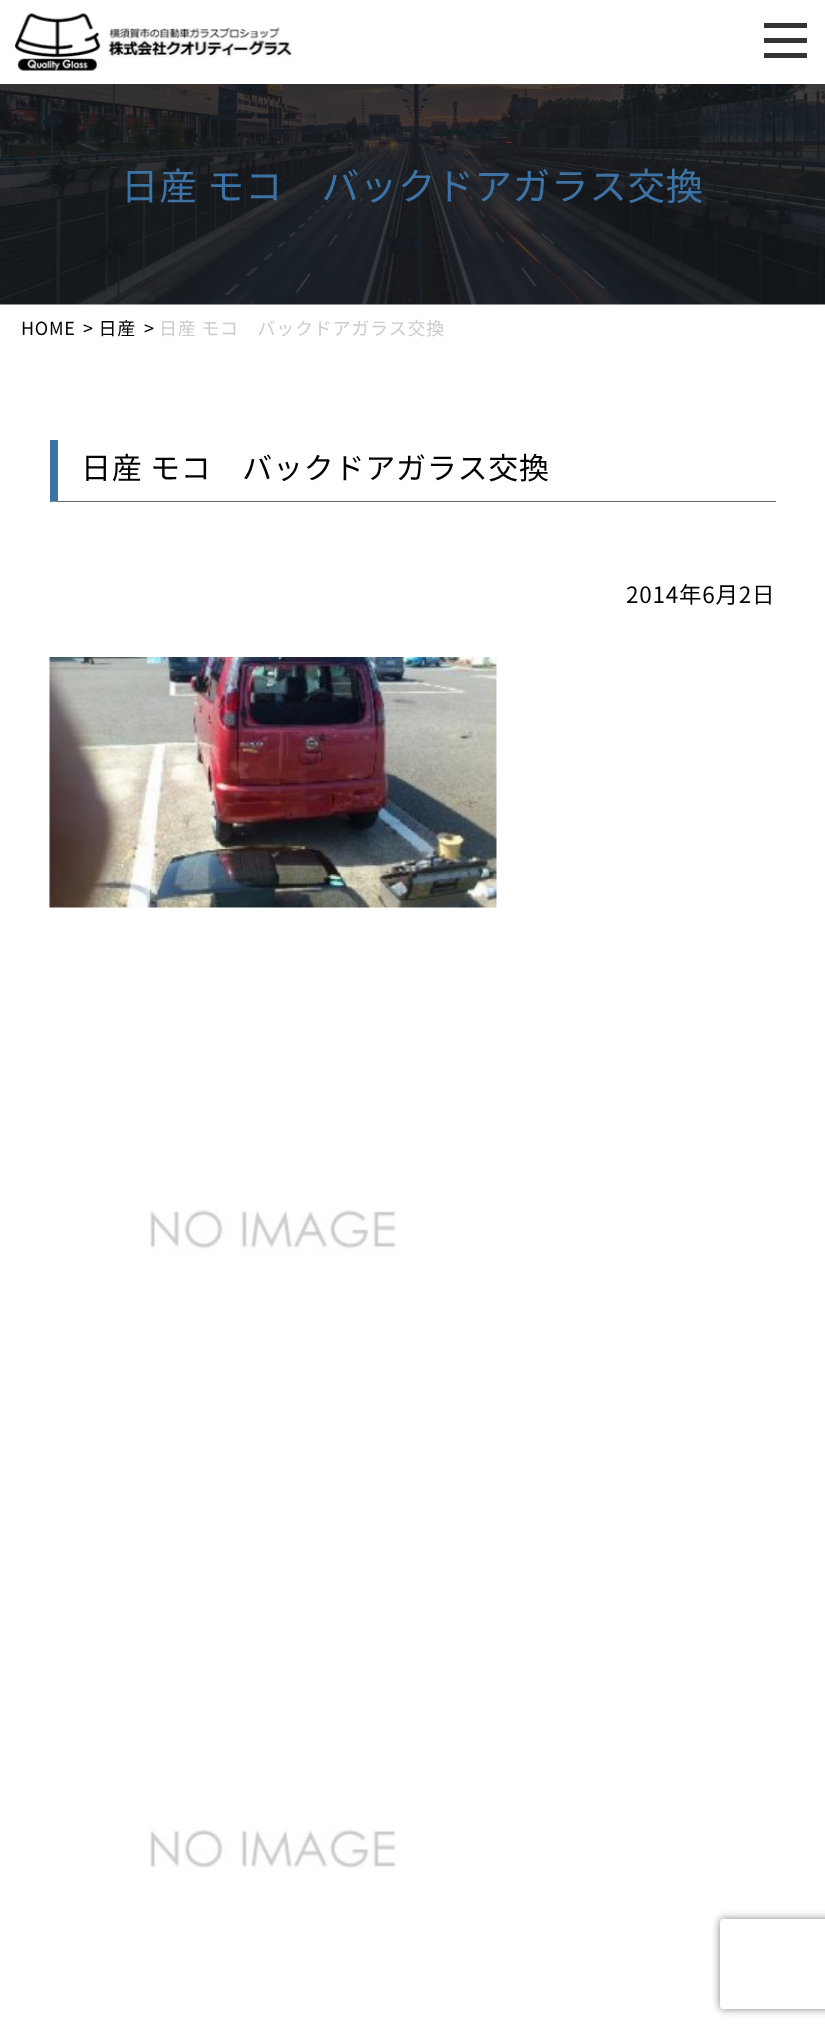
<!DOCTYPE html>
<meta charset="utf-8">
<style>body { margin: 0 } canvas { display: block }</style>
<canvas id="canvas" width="825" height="2029"></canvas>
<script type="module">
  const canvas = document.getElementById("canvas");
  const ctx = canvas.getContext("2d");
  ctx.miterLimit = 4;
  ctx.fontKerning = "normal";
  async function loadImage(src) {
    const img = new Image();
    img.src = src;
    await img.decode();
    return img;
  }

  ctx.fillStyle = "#ffffff";
  ctx.fillRect(0, 0, 825, 2029);
  ctx.drawImage(await loadImage("img1.png"), 15, 13, 278, 58);
  ctx.fillStyle = "#333333";
  ctx.fillRect(764, 38, 43, 5);
  ctx.fillRect(764, 23, 43, 5);
  ctx.fillRect(764, 53, 43, 5);
  ctx.drawImage(await loadImage("img2.png"), 0, 84, 825, 221);
  ctx.letterSpacing = "0.75px";
  ctx.font = "37.5px Noto Sans JP";
  ctx.fillStyle = "#3d72a4";
  ctx.fillText("日産 モコ　バックドアガラス交換", 121, 200);
  ctx.font = "18px Noto Sans JP";
  ctx.fillStyle = "#010101";
  ctx.fillText("HOME", 21, 335);
  ctx.fillText("> 日産", 83, 335);
  ctx.fillText(">", 144, 335);
  ctx.fillStyle = "#cccccc";
  ctx.fillText("日産 モコ　バックドアガラス交換", 159, 335);
  ctx.fillStyle = "#666666";
  ctx.beginPath();
  ctx.moveTo(776, 502);
  ctx.lineTo(50, 502);
  ctx.lineTo(58, 501);
  ctx.lineTo(776, 501);
  ctx.closePath();
  ctx.fill();
  ctx.fillStyle = "#3d72a4";
  ctx.beginPath();
  ctx.moveTo(50, 502);
  ctx.lineTo(50, 440);
  ctx.lineTo(58, 440);
  ctx.lineTo(58, 501);
  ctx.closePath();
  ctx.fill();
  ctx.font = "30px Noto Sans JP";
  ctx.fillStyle = "#010101";
  ctx.fillText("日産 モコ　バックドアガラス交換", 81, 479);
  ctx.font = "22.5px Noto Sans JP";
  ctx.fillText("2014年6月2日", 626, 603);
  ctx.drawImage(await loadImage("img3.png"), 49, 657, 448, 251);
  ctx.drawImage(await loadImage("img4.png"), 149, 1210, 247, 44);
  ctx.drawImage(await loadImage("img5.png"), 149, 1829, 247, 39);
  ctx.save();
  ctx.beginPath();
  ctx.moveTo(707, 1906);
  ctx.lineTo(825, 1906);
  ctx.lineTo(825, 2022);
  ctx.lineTo(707, 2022);
  ctx.closePath();
  ctx.moveTo(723, 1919);
  ctx.lineTo(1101, 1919);
  ctx.bezierCurveTo(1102.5, 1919, 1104, 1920.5, 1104, 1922);
  ctx.lineTo(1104, 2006);
  ctx.bezierCurveTo(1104, 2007.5, 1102.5, 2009, 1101, 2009);
  ctx.lineTo(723, 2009);
  ctx.bezierCurveTo(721.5, 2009, 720, 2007.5, 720, 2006);
  ctx.lineTo(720, 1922);
  ctx.bezierCurveTo(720, 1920.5, 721.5, 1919, 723, 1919);
  ctx.closePath();
  ctx.clip("evenodd");
  ctx.fillStyle = "#808080";
  ctx.filter = "blur(4px)";
  ctx.beginPath();
  ctx.roundRect(720, 1919, 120, 90, 3);
  ctx.fill();
  ctx.filter = "none";
  ctx.restore();
</script>
